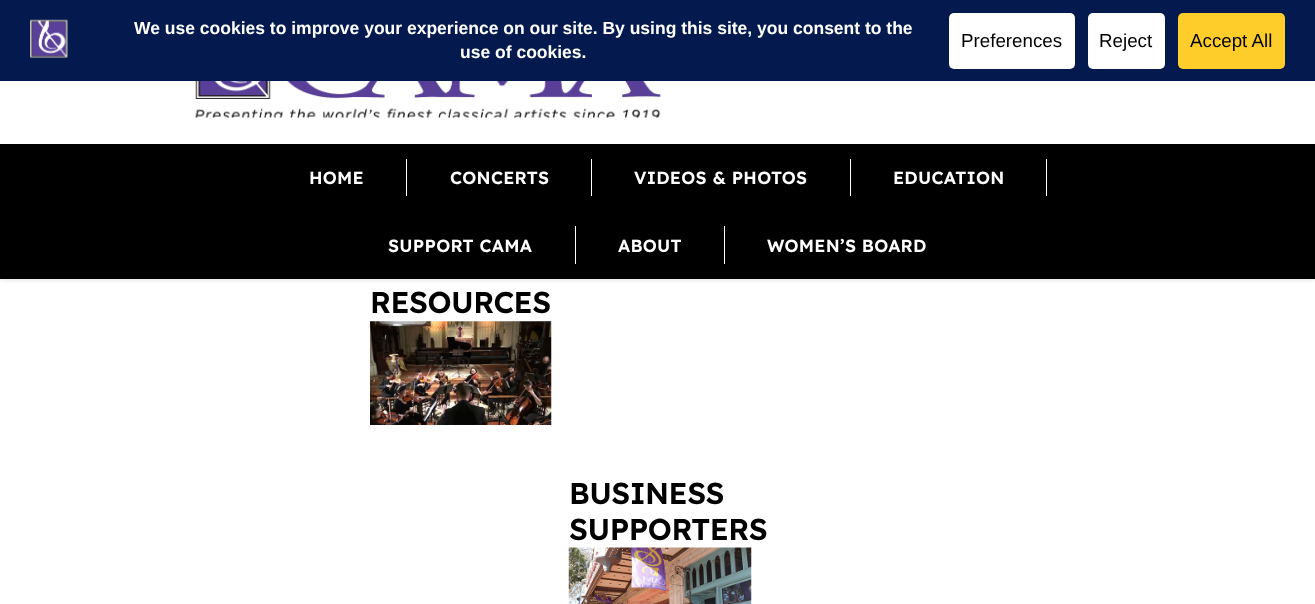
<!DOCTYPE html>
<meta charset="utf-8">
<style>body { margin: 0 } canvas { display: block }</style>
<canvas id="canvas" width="1315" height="604"></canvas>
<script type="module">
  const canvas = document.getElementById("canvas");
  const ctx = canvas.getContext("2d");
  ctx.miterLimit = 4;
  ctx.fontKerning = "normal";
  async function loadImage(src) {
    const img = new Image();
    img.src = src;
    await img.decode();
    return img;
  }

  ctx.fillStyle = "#ffffff";
  ctx.fillRect(0, 0, 1315, 604);
  ctx.fillStyle = "rgba(0, 0, 0, 0.12)";
  ctx.filter = "blur(2px)";
  ctx.beginPath();
  ctx.rect(0, 1, 1315, 279);
  ctx.fill();
  ctx.filter = "none";
  ctx.fillStyle = "#04194e";
  ctx.fillRect(0, 0, 1315, 81);
  ctx.drawImage(await loadImage("img1.png"), 30, 19, 38, 39);
  ctx.font = "bold 17.5px Liberation Sans";
  ctx.fillStyle = "#ffffff";
  ctx.fillText("We use cookies to improve your experience on our site. By using this site, you consent to the", 134, 34);
  ctx.fillText("use of cookies.", 460, 58);
  ctx.beginPath();
  ctx.roundRect(949, 13, 126, 56, 5);
  ctx.fill();
  ctx.font = "18.75px Liberation Sans";
  ctx.fillStyle = "#000000";
  ctx.fillText("Preferences", 961, 47);
  ctx.fillStyle = "#ffffff";
  ctx.beginPath();
  ctx.roundRect(1088, 13, 77, 56, 5);
  ctx.fill();
  ctx.fillStyle = "#000000";
  ctx.fillText("Reject", 1099, 47);
  ctx.fillStyle = "#ffcd2a";
  ctx.beginPath();
  ctx.roundRect(1178, 13, 107, 56, 5);
  ctx.fill();
  ctx.fillStyle = "#000000";
  ctx.fillText("Accept All", 1190, 47);
  ctx.fillStyle = "#ffffff";
  ctx.fillRect(0, 81, 1315, 63);
  ctx.drawImage(await loadImage("img2.png"), 195, 81, 466, 37);
  ctx.fillStyle = "#000000";
  ctx.fillRect(0, 144, 1315, 135);
  ctx.fillStyle = "#ffffff";
  ctx.fillRect(406, 159, 1, 37);
  ctx.letterSpacing = "0.25px";
  ctx.font = "600 17.5px Lexend";
  ctx.fillText("HOME", 309, 184);
  ctx.fillRect(591, 159, 1, 37);
  ctx.fillText("CONCERTS", 450, 184);
  ctx.fillRect(850, 159, 1, 37);
  ctx.fillText("VIDEOS & PHOTOS", 634, 184);
  ctx.fillRect(1046, 159, 1, 37);
  ctx.fillText("EDUCATION", 893, 184);
  ctx.fillRect(575, 226, 1, 38);
  ctx.fillText("SUPPORT CAMA", 388, 252);
  ctx.fillRect(724, 226, 1, 38);
  ctx.fillText("ABOUT", 618, 252);
  ctx.fillText("WOMEN’S BOARD", 767, 252);
  ctx.letterSpacing = "-0.5px";
  ctx.font = "600 30px Lexend";
  ctx.fillStyle = "#000000";
  ctx.fillText("RESOURCES", 370, 313);
  ctx.drawImage(await loadImage("img3.png"), 370, 321, 182, 104);
  ctx.fillText("BUSINESS", 569, 504);
  ctx.fillText("SUPPORTERS", 569, 540);
  ctx.drawImage(await loadImage("img4.png"), 568, 547, 184, 57);
</script>
